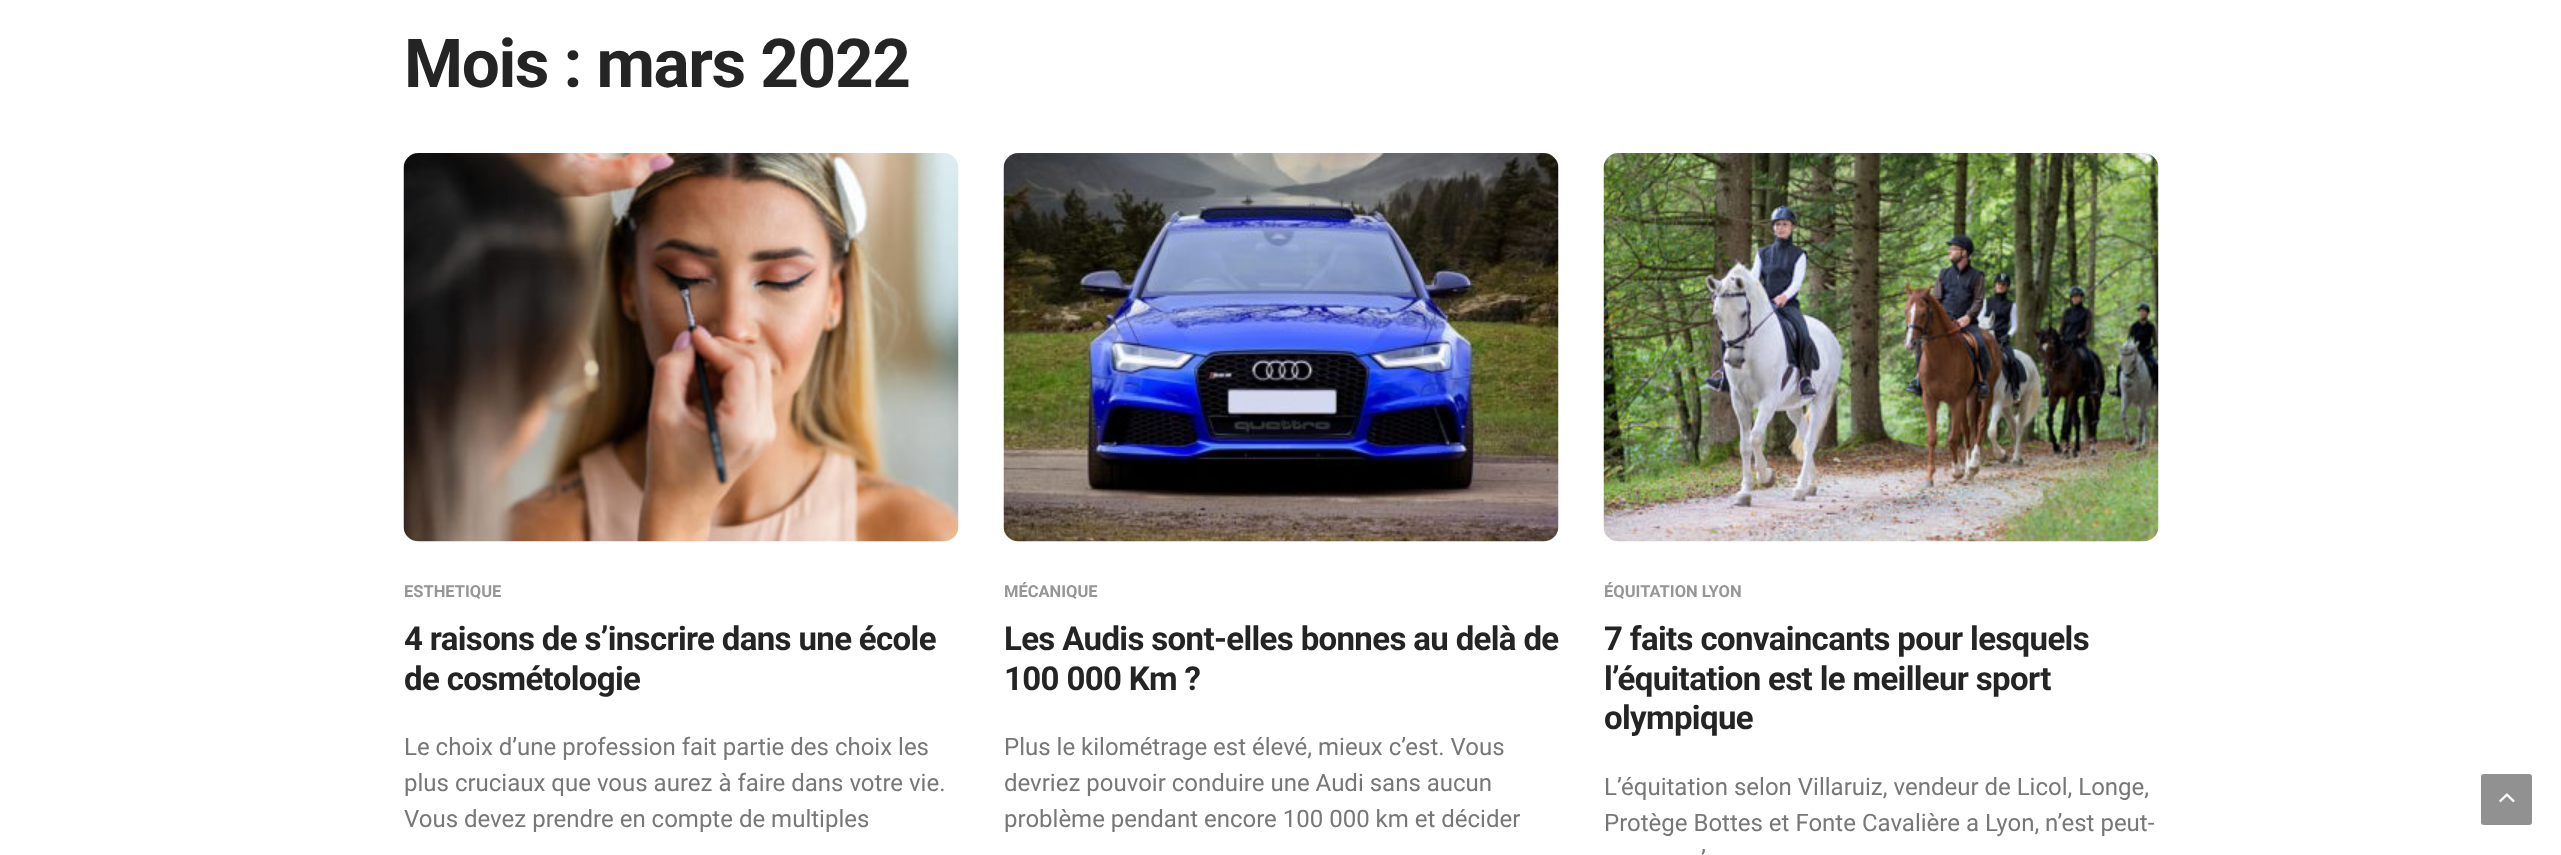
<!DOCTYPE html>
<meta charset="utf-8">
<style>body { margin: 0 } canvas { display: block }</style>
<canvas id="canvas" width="2561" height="855"></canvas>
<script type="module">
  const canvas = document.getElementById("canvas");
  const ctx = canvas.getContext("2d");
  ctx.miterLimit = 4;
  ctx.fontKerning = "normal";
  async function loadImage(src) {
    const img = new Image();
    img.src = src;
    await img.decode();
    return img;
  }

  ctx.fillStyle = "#ffffff";
  ctx.fillRect(0, 0, 2561, 855);
  ctx.letterSpacing = "-1.4px";
  ctx.font = "bold 67.5px Roboto";
  ctx.fillStyle = "#242424";
  ctx.fillText("Mois : mars 2022", 404, 87);
  ctx.drawImage(await loadImage("img1.png"), 403, 153, 556, 389);
  ctx.letterSpacing = "0px";
  ctx.font = "bold 16.5px Roboto";
  ctx.fillStyle = "#969696";
  ctx.fillText("ESTHETIQUE", 404, 597);
  ctx.letterSpacing = "-0.65px";
  ctx.font = "bold 33px Roboto";
  ctx.fillStyle = "#242424";
  ctx.fillText("4 raisons de s’inscrire dans une école", 404, 650);
  ctx.fillText("de cosmétologie", 404, 690);
  ctx.letterSpacing = "0px";
  ctx.font = "24px Roboto";
  ctx.fillStyle = "#777777";
  ctx.fillText("Le choix d’une profession fait partie des choix les", 404, 755);
  ctx.fillText("plus cruciaux que vous aurez à faire dans votre vie.", 404, 791);
  ctx.fillText("Vous devez prendre en compte de multiples", 404, 827);
  ctx.drawImage(await loadImage("img2.png"), 1003, 153, 556, 389);
  ctx.font = "bold 16.5px Roboto";
  ctx.fillStyle = "#969696";
  ctx.fillText("MÉCANIQUE", 1004, 597);
  ctx.letterSpacing = "-0.65px";
  ctx.font = "bold 33px Roboto";
  ctx.fillStyle = "#242424";
  ctx.fillText("Les Audis sont-elles bonnes au delà de", 1004, 650);
  ctx.fillText("100 000 Km ?", 1004, 690);
  ctx.letterSpacing = "0px";
  ctx.font = "24px Roboto";
  ctx.fillStyle = "#777777";
  ctx.fillText("Plus le kilométrage est élevé, mieux c’est. Vous", 1004, 755);
  ctx.fillText("devriez pouvoir conduire une Audi sans aucun", 1004, 791);
  ctx.fillText("problème pendant encore 100 000 km et décider", 1004, 827);
  ctx.drawImage(await loadImage("img3.png"), 1603, 153, 556, 389);
  ctx.font = "bold 16.5px Roboto";
  ctx.fillStyle = "#969696";
  ctx.fillText("ÉQUITATION LYON", 1604, 597);
  ctx.letterSpacing = "-0.65px";
  ctx.font = "bold 33px Roboto";
  ctx.fillStyle = "#242424";
  ctx.fillText("7 faits convaincants pour lesquels", 1604, 650);
  ctx.fillText("l’équitation est le meilleur sport", 1604, 690);
  ctx.fillText("olympique", 1604, 729);
  ctx.letterSpacing = "0px";
  ctx.font = "24px Roboto";
  ctx.fillStyle = "#777777";
  ctx.fillText("L’équitation selon Villaruiz, vendeur de Licol, Longe,", 1604, 795);
  ctx.fillText("Protège Bottes et Fonte Cavalière a Lyon, n’est peut-", 1604, 831);
  ctx.fillText("’", 1701, 867);
  ctx.fillStyle = "#919191";
  ctx.beginPath();
  ctx.roundRect(2481, 774, 51, 51, 3);
  ctx.fill();
  ctx.drawImage(await loadImage("img4.png"), 2499, 793, 16, 10);
</script>
